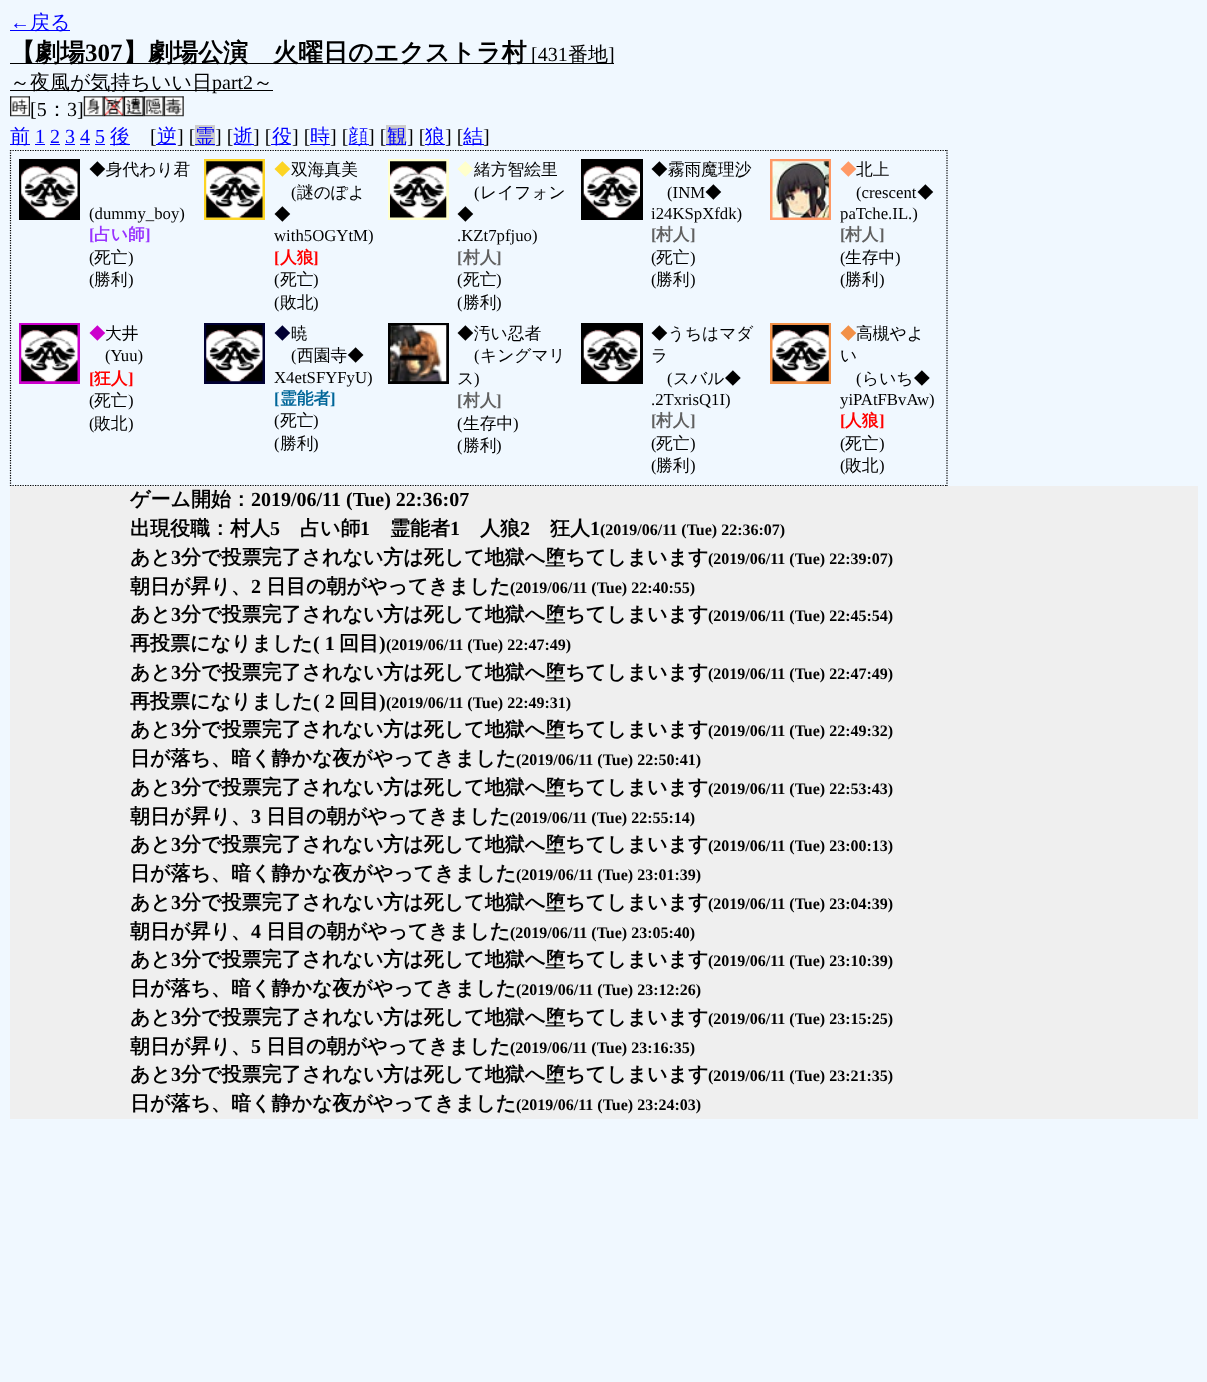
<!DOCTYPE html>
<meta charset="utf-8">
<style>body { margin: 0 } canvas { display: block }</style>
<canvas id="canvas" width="1207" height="1382"></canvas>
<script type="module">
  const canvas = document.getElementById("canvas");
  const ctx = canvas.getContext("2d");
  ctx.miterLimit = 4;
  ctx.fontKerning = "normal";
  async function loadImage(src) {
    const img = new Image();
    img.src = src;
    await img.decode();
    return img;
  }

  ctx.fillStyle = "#f0f8ff";
  ctx.fillRect(0, 0, 1207, 1382);
  ctx.font = "20px Liberation Serif";
  ctx.fillStyle = "#0000ff";
  ctx.fillText("←", 10, 29);
  ctx.fillRect(10, 30, 60, 1);
  ctx.font = "500 20px WenQuanYi Zen Hei";
  ctx.fillText("戻る", 30, 29);
  ctx.fillStyle = "#000000";
  ctx.fillRect(10, 63, 604, 1);
  ctx.font = "bold 25px WenQuanYi Zen Hei";
  ctx.fillText("【劇場", 10, 61);
  ctx.font = "bold 25px Liberation Serif";
  ctx.fillText("307", 85, 61);
  ctx.font = "bold 25px WenQuanYi Zen Hei";
  ctx.fillText("】劇場公演　火曜日のエクストラ村", 123, 61);
  ctx.font = "20px Liberation Serif";
  ctx.fillText("[431", 531, 61);
  ctx.font = "500 20px WenQuanYi Zen Hei";
  ctx.fillText("番地", 568, 61);
  ctx.font = "20px Liberation Serif";
  ctx.fillText("]", 608, 61);
  ctx.fillRect(10, 90, 263, 1);
  ctx.font = "500 20px WenQuanYi Zen Hei";
  ctx.fillText("～夜風が気持ちいい日", 10, 89);
  ctx.font = "20px Liberation Serif";
  ctx.fillText("part2", 212, 89);
  ctx.font = "500 20px WenQuanYi Zen Hei";
  ctx.fillText("～", 253, 89);
  ctx.drawImage(await loadImage("img1.png"), 10, 96, 20, 21);
  ctx.font = "20px Liberation Serif";
  ctx.fillText("[5", 30, 116);
  ctx.font = "500 20px WenQuanYi Zen Hei";
  ctx.fillText("：", 47, 116);
  ctx.font = "20px Liberation Serif";
  ctx.fillText("3]", 67, 116);
  ctx.drawImage(await loadImage("img2.png"), 83, 96, 21, 21);
  ctx.drawImage(await loadImage("img3.png"), 103, 96, 21, 21);
  ctx.drawImage(await loadImage("img4.png"), 123, 96, 21, 21);
  ctx.drawImage(await loadImage("img5.png"), 143, 96, 21, 21);
  ctx.drawImage(await loadImage("img6.png"), 163, 96, 21, 21);
  ctx.fillStyle = "#0000ff";
  ctx.fillRect(10, 144, 20, 1);
  ctx.font = "500 20px WenQuanYi Zen Hei";
  ctx.fillText("前", 10, 143);
  ctx.font = "20px Liberation Serif";
  ctx.fillText("1 2 3 4 5", 35, 143);
  ctx.fillRect(35, 144, 10, 1);
  ctx.fillRect(110, 144, 20, 1);
  ctx.font = "500 20px WenQuanYi Zen Hei";
  ctx.fillText("後", 110, 143);
  ctx.font = "20px Liberation Serif";
  ctx.fillStyle = "#000000";
  ctx.fillText("[", 150, 143);
  ctx.fillStyle = "#0000ff";
  ctx.fillRect(156, 144, 20, 1);
  ctx.font = "500 20px WenQuanYi Zen Hei";
  ctx.fillText("逆", 157, 143);
  ctx.font = "20px Liberation Serif";
  ctx.fillStyle = "#000000";
  ctx.fillText("] [", 177, 143);
  ctx.fillStyle = "#cccccc";
  ctx.fillRect(195, 125, 20, 21);
  ctx.fillStyle = "#0000ff";
  ctx.fillRect(195, 144, 20, 1);
  ctx.font = "500 20px WenQuanYi Zen Hei";
  ctx.fillText("霊", 195, 143);
  ctx.font = "20px Liberation Serif";
  ctx.fillStyle = "#000000";
  ctx.fillText("] [", 215, 143);
  ctx.fillStyle = "#0000ff";
  ctx.fillRect(234, 144, 20, 1);
  ctx.font = "500 20px WenQuanYi Zen Hei";
  ctx.fillText("逝", 233, 143);
  ctx.font = "20px Liberation Serif";
  ctx.fillStyle = "#000000";
  ctx.fillText("] [", 253, 143);
  ctx.fillStyle = "#0000ff";
  ctx.fillRect(271, 144, 20, 1);
  ctx.font = "500 20px WenQuanYi Zen Hei";
  ctx.fillText("役", 272, 143);
  ctx.font = "20px Liberation Serif";
  ctx.fillStyle = "#000000";
  ctx.fillText("] [", 292, 143);
  ctx.fillStyle = "#0000ff";
  ctx.fillRect(310, 144, 20, 1);
  ctx.font = "500 20px WenQuanYi Zen Hei";
  ctx.fillText("時", 310, 143);
  ctx.font = "20px Liberation Serif";
  ctx.fillStyle = "#000000";
  ctx.fillText("] [", 330, 143);
  ctx.fillStyle = "#0000ff";
  ctx.fillRect(349, 144, 20, 1);
  ctx.font = "500 20px WenQuanYi Zen Hei";
  ctx.fillText("顔", 348, 143);
  ctx.font = "20px Liberation Serif";
  ctx.fillStyle = "#000000";
  ctx.fillText("] [", 368, 143);
  ctx.fillStyle = "#cccccc";
  ctx.fillRect(386, 125, 20, 21);
  ctx.fillStyle = "#0000ff";
  ctx.fillRect(386, 144, 20, 1);
  ctx.font = "500 20px WenQuanYi Zen Hei";
  ctx.fillText("観", 387, 143);
  ctx.font = "20px Liberation Serif";
  ctx.fillStyle = "#000000";
  ctx.fillText("] [", 407, 143);
  ctx.fillStyle = "#0000ff";
  ctx.fillRect(425, 144, 20, 1);
  ctx.font = "500 20px WenQuanYi Zen Hei";
  ctx.fillText("狼", 425, 143);
  ctx.font = "20px Liberation Serif";
  ctx.fillStyle = "#000000";
  ctx.fillText("] [", 445, 143);
  ctx.fillStyle = "#0000ff";
  ctx.fillRect(464, 144, 20, 1);
  ctx.font = "500 20px WenQuanYi Zen Hei";
  ctx.fillText("結", 463, 143);
  ctx.font = "20px Liberation Serif";
  ctx.fillStyle = "#000000";
  ctx.fillText("]", 483, 143);
  ctx.fillStyle = "#0000ff";
  ctx.fillRect(50, 144, 10, 1);
  ctx.fillRect(65, 144, 10, 1);
  ctx.fillRect(80, 144, 10, 1);
  ctx.fillRect(95, 144, 10, 1);
  ctx.beginPath();
  ctx.moveTo(10, 150.5);
  ctx.lineTo(947.5, 150.5);
  ctx.strokeStyle = "#000000";
  ctx.lineWidth = 1.2;
  ctx.setLineDash([1.25, 1.25]);
  ctx.stroke();
  ctx.beginPath();
  ctx.moveTo(947, 150);
  ctx.lineTo(947, 486);
  ctx.stroke();
  ctx.beginPath();
  ctx.moveTo(10, 485.5);
  ctx.lineTo(947.5, 485.5);
  ctx.stroke();
  ctx.beginPath();
  ctx.moveTo(10.5, 150);
  ctx.lineTo(10.5, 486);
  ctx.stroke();
  ctx.lineWidth = 3;
  ctx.setLineDash([]);
  ctx.strokeRect(20.5, 160.5, 58, 58);
  ctx.drawImage(await loadImage("img7.png"), 21, 162, 57, 56);
  ctx.font = "500 16.75px WenQuanYi Zen Hei";
  ctx.fillStyle = "#000000";
  ctx.fillText("◆身代わり君", 89, 175);
  ctx.font = "16.75px Liberation Serif";
  ctx.fillText("(dummy_boy)", 89, 219);
  ctx.font = "bold 16.75px Liberation Serif";
  ctx.fillStyle = "#9933ff";
  ctx.fillText("[", 89, 240);
  ctx.font = "bold 16.75px WenQuanYi Zen Hei";
  ctx.fillText("占い師", 94, 240);
  ctx.font = "bold 16.75px Liberation Serif";
  ctx.fillText("]", 145, 240);
  ctx.font = "16.75px Liberation Serif";
  ctx.fillStyle = "#000000";
  ctx.fillText("(", 89, 263);
  ctx.font = "500 16.75px WenQuanYi Zen Hei";
  ctx.fillText("死亡", 94, 263);
  ctx.font = "16.75px Liberation Serif";
  ctx.fillText(")", 128, 263);
  ctx.fillText("(", 89, 285);
  ctx.font = "500 16.75px WenQuanYi Zen Hei";
  ctx.fillText("勝利", 94, 285);
  ctx.font = "16.75px Liberation Serif";
  ctx.fillText(")", 128, 285);
  ctx.strokeStyle = "#fcd424";
  ctx.strokeRect(205.5, 160.5, 58, 58);
  ctx.drawImage(await loadImage("img8.png"), 206, 161, 57, 57);
  ctx.font = "500 16.75px WenQuanYi Zen Hei";
  ctx.fillStyle = "#fcd424";
  ctx.fillText("◆", 274, 175);
  ctx.fillStyle = "#000000";
  ctx.fillText("双海真美", 291, 175);
  ctx.font = "16.75px Liberation Serif";
  ctx.fillText("(", 291, 198);
  ctx.font = "500 16.75px WenQuanYi Zen Hei";
  ctx.fillText("謎のぽよ", 297, 198);
  ctx.fillText("◆", 274, 220);
  ctx.font = "16.75px Liberation Serif";
  ctx.fillText("with5OGYtM)", 274, 241);
  ctx.font = "bold 16.75px Liberation Serif";
  ctx.fillStyle = "#ff0000";
  ctx.fillText("[", 274, 263);
  ctx.font = "bold 16.75px WenQuanYi Zen Hei";
  ctx.fillText("人狼", 280, 263);
  ctx.font = "bold 16.75px Liberation Serif";
  ctx.fillText("]", 313, 263);
  ctx.font = "16.75px Liberation Serif";
  ctx.fillStyle = "#000000";
  ctx.fillText("(", 274, 285);
  ctx.font = "500 16.75px WenQuanYi Zen Hei";
  ctx.fillText("死亡", 280, 285);
  ctx.font = "16.75px Liberation Serif";
  ctx.fillText(")", 313, 285);
  ctx.fillText("(", 274, 308);
  ctx.font = "500 16.75px WenQuanYi Zen Hei";
  ctx.fillText("敗北", 280, 308);
  ctx.font = "16.75px Liberation Serif";
  ctx.fillText(")", 313, 308);
  ctx.strokeStyle = "#ffffcc";
  ctx.strokeRect(389.5, 160.5, 58, 58);
  ctx.drawImage(await loadImage("img9.png"), 390, 161, 57, 57);
  ctx.font = "500 16.75px WenQuanYi Zen Hei";
  ctx.fillStyle = "#ffffcc";
  ctx.fillText("◆", 457, 175);
  ctx.fillStyle = "#000000";
  ctx.fillText("緒方智絵里", 474, 175);
  ctx.font = "16.75px Liberation Serif";
  ctx.fillText("(", 474, 198);
  ctx.font = "500 16.75px WenQuanYi Zen Hei";
  ctx.fillText("レイフォン", 480, 198);
  ctx.fillText("◆", 457, 220);
  ctx.font = "16.75px Liberation Serif";
  ctx.fillText(".KZt7pfjuo)", 457, 241);
  ctx.font = "bold 16.75px Liberation Serif";
  ctx.fillStyle = "#606060";
  ctx.fillText("[", 457, 263);
  ctx.font = "bold 16.75px WenQuanYi Zen Hei";
  ctx.fillText("村人", 463, 263);
  ctx.font = "bold 16.75px Liberation Serif";
  ctx.fillText("]", 496, 263);
  ctx.font = "16.75px Liberation Serif";
  ctx.fillStyle = "#000000";
  ctx.fillText("(", 457, 285);
  ctx.font = "500 16.75px WenQuanYi Zen Hei";
  ctx.fillText("死亡", 463, 285);
  ctx.font = "16.75px Liberation Serif";
  ctx.fillText(")", 496, 285);
  ctx.fillText("(", 457, 308);
  ctx.font = "500 16.75px WenQuanYi Zen Hei";
  ctx.fillText("勝利", 463, 308);
  ctx.font = "16.75px Liberation Serif";
  ctx.fillText(")", 496, 308);
  ctx.strokeStyle = "#000000";
  ctx.strokeRect(582.5, 160.5, 59, 58);
  ctx.drawImage(await loadImage("img10.png"), 583, 162, 57, 56);
  ctx.font = "500 16.75px WenQuanYi Zen Hei";
  ctx.fillText("◆霧雨魔理沙", 651, 175);
  ctx.font = "16.75px Liberation Serif";
  ctx.fillText("(INM", 667, 198);
  ctx.font = "500 16.75px WenQuanYi Zen Hei";
  ctx.fillText("◆", 705, 198);
  ctx.font = "16.75px Liberation Serif";
  ctx.fillText("i24KSpXfdk)", 651, 219);
  ctx.font = "bold 16.75px Liberation Serif";
  ctx.fillStyle = "#606060";
  ctx.fillText("[", 651, 240);
  ctx.font = "bold 16.75px WenQuanYi Zen Hei";
  ctx.fillText("村人", 656, 240);
  ctx.font = "bold 16.75px Liberation Serif";
  ctx.fillText("]", 690, 240);
  ctx.font = "16.75px Liberation Serif";
  ctx.fillStyle = "#000000";
  ctx.fillText("(", 651, 263);
  ctx.font = "500 16.75px WenQuanYi Zen Hei";
  ctx.fillText("死亡", 656, 263);
  ctx.font = "16.75px Liberation Serif";
  ctx.fillText(")", 690, 263);
  ctx.fillText("(", 651, 285);
  ctx.font = "500 16.75px WenQuanYi Zen Hei";
  ctx.fillText("勝利", 656, 285);
  ctx.font = "16.75px Liberation Serif";
  ctx.fillText(")", 690, 285);
  ctx.strokeStyle = "#ff9966";
  ctx.strokeRect(771.5, 160.5, 58, 58);
  ctx.drawImage(await loadImage("img11.png"), 772, 161, 57, 57);
  ctx.font = "500 16.75px WenQuanYi Zen Hei";
  ctx.fillStyle = "#ff9966";
  ctx.fillText("◆", 840, 175);
  ctx.fillStyle = "#000000";
  ctx.fillText("北上", 856, 175);
  ctx.font = "16.75px Liberation Serif";
  ctx.fillText("(crescent", 856, 198);
  ctx.font = "500 16.75px WenQuanYi Zen Hei";
  ctx.fillText("◆", 917, 198);
  ctx.font = "16.75px Liberation Serif";
  ctx.fillText("paTche.IL.)", 840, 219);
  ctx.font = "bold 16.75px Liberation Serif";
  ctx.fillStyle = "#606060";
  ctx.fillText("[", 840, 240);
  ctx.font = "bold 16.75px WenQuanYi Zen Hei";
  ctx.fillText("村人", 845, 240);
  ctx.font = "bold 16.75px Liberation Serif";
  ctx.fillText("]", 879, 240);
  ctx.font = "16.75px Liberation Serif";
  ctx.fillStyle = "#000000";
  ctx.fillText("(", 840, 263);
  ctx.font = "500 16.75px WenQuanYi Zen Hei";
  ctx.fillText("生存中", 845, 263);
  ctx.font = "16.75px Liberation Serif";
  ctx.fillText(")", 895, 263);
  ctx.fillText("(", 840, 285);
  ctx.font = "500 16.75px WenQuanYi Zen Hei";
  ctx.fillText("勝利", 845, 285);
  ctx.font = "16.75px Liberation Serif";
  ctx.fillText(")", 879, 285);
  ctx.strokeStyle = "#cc00cc";
  ctx.strokeRect(20.5, 324.5, 58, 58);
  ctx.drawImage(await loadImage("img12.png"), 21, 325, 57, 57);
  ctx.font = "500 16.75px WenQuanYi Zen Hei";
  ctx.fillStyle = "#cc00cc";
  ctx.fillText("◆", 89, 339);
  ctx.fillStyle = "#000000";
  ctx.fillText("大井", 105, 339);
  ctx.font = "16.75px Liberation Serif";
  ctx.fillText("(Yuu)", 105, 361);
  ctx.font = "bold 16.75px Liberation Serif";
  ctx.fillStyle = "#ff0000";
  ctx.fillText("[", 89, 384);
  ctx.font = "bold 16.75px WenQuanYi Zen Hei";
  ctx.fillText("狂人", 94, 384);
  ctx.font = "bold 16.75px Liberation Serif";
  ctx.fillText("]", 128, 384);
  ctx.font = "16.75px Liberation Serif";
  ctx.fillStyle = "#000000";
  ctx.fillText("(", 89, 406);
  ctx.font = "500 16.75px WenQuanYi Zen Hei";
  ctx.fillText("死亡", 94, 406);
  ctx.font = "16.75px Liberation Serif";
  ctx.fillText(")", 128, 406);
  ctx.fillText("(", 89, 429);
  ctx.font = "500 16.75px WenQuanYi Zen Hei";
  ctx.fillText("敗北", 94, 429);
  ctx.font = "16.75px Liberation Serif";
  ctx.fillText(")", 128, 429);
  ctx.strokeStyle = "#000033";
  ctx.strokeRect(205.5, 324.5, 58, 58);
  ctx.drawImage(await loadImage("img13.png"), 206, 325, 57, 57);
  ctx.font = "500 16.75px WenQuanYi Zen Hei";
  ctx.fillStyle = "#000033";
  ctx.fillText("◆", 274, 339);
  ctx.fillStyle = "#000000";
  ctx.fillText("暁", 291, 339);
  ctx.font = "16.75px Liberation Serif";
  ctx.fillText("(", 291, 361);
  ctx.font = "500 16.75px WenQuanYi Zen Hei";
  ctx.fillText("西園寺◆", 297, 361);
  ctx.font = "16.75px Liberation Serif";
  ctx.fillText("X4etSFYFyU)", 274, 383);
  ctx.font = "bold 16.75px Liberation Serif";
  ctx.fillStyle = "#006699";
  ctx.fillText("[", 274, 404);
  ctx.font = "bold 16.75px WenQuanYi Zen Hei";
  ctx.fillText("霊能者", 280, 404);
  ctx.font = "bold 16.75px Liberation Serif";
  ctx.fillText("]", 330, 404);
  ctx.font = "16.75px Liberation Serif";
  ctx.fillStyle = "#000000";
  ctx.fillText("(", 274, 426);
  ctx.font = "500 16.75px WenQuanYi Zen Hei";
  ctx.fillText("死亡", 280, 426);
  ctx.font = "16.75px Liberation Serif";
  ctx.fillText(")", 313, 426);
  ctx.fillText("(", 274, 449);
  ctx.font = "500 16.75px WenQuanYi Zen Hei";
  ctx.fillText("勝利", 280, 449);
  ctx.font = "16.75px Liberation Serif";
  ctx.fillText(")", 313, 449);
  ctx.strokeStyle = "#000000";
  ctx.strokeRect(389.5, 324.5, 58, 58);
  ctx.drawImage(await loadImage("img14.png"), 390, 325, 57, 57);
  ctx.font = "500 16.75px WenQuanYi Zen Hei";
  ctx.fillText("◆汚い忍者", 457, 339);
  ctx.font = "16.75px Liberation Serif";
  ctx.fillText("(", 474, 361);
  ctx.font = "500 16.75px WenQuanYi Zen Hei";
  ctx.fillText("キングマリ", 480, 361);
  ctx.fillText("ス", 457, 384);
  ctx.font = "16.75px Liberation Serif";
  ctx.fillText(")", 474, 384);
  ctx.font = "bold 16.75px Liberation Serif";
  ctx.fillStyle = "#606060";
  ctx.fillText("[", 457, 406);
  ctx.font = "bold 16.75px WenQuanYi Zen Hei";
  ctx.fillText("村人", 463, 406);
  ctx.font = "bold 16.75px Liberation Serif";
  ctx.fillText("]", 496, 406);
  ctx.font = "16.75px Liberation Serif";
  ctx.fillStyle = "#000000";
  ctx.fillText("(", 457, 429);
  ctx.font = "500 16.75px WenQuanYi Zen Hei";
  ctx.fillText("生存中", 463, 429);
  ctx.font = "16.75px Liberation Serif";
  ctx.fillText(")", 513, 429);
  ctx.fillText("(", 457, 451);
  ctx.font = "500 16.75px WenQuanYi Zen Hei";
  ctx.fillText("勝利", 463, 451);
  ctx.font = "16.75px Liberation Serif";
  ctx.fillText(")", 496, 451);
  ctx.strokeRect(582.5, 324.5, 59, 58);
  ctx.drawImage(await loadImage("img15.png"), 583, 326, 57, 56);
  ctx.font = "500 16.75px WenQuanYi Zen Hei";
  ctx.fillText("◆うちはマダ", 651, 339);
  ctx.fillText("ラ", 651, 361);
  ctx.font = "16.75px Liberation Serif";
  ctx.fillText("(", 667, 384);
  ctx.font = "500 16.75px WenQuanYi Zen Hei";
  ctx.fillText("スバル◆", 673, 384);
  ctx.font = "16.75px Liberation Serif";
  ctx.fillText(".2TxrisQ1I)", 651, 405);
  ctx.font = "bold 16.75px Liberation Serif";
  ctx.fillStyle = "#606060";
  ctx.fillText("[", 651, 426);
  ctx.font = "bold 16.75px WenQuanYi Zen Hei";
  ctx.fillText("村人", 656, 426);
  ctx.font = "bold 16.75px Liberation Serif";
  ctx.fillText("]", 690, 426);
  ctx.font = "16.75px Liberation Serif";
  ctx.fillStyle = "#000000";
  ctx.fillText("(", 651, 449);
  ctx.font = "500 16.75px WenQuanYi Zen Hei";
  ctx.fillText("死亡", 656, 449);
  ctx.font = "16.75px Liberation Serif";
  ctx.fillText(")", 690, 449);
  ctx.fillText("(", 651, 471);
  ctx.font = "500 16.75px WenQuanYi Zen Hei";
  ctx.fillText("勝利", 656, 471);
  ctx.font = "16.75px Liberation Serif";
  ctx.fillText(")", 690, 471);
  ctx.strokeStyle = "#f29047";
  ctx.strokeRect(771.5, 324.5, 58, 58);
  ctx.drawImage(await loadImage("img16.png"), 772, 325, 57, 57);
  ctx.font = "500 16.75px WenQuanYi Zen Hei";
  ctx.fillStyle = "#f29047";
  ctx.fillText("◆", 840, 339);
  ctx.fillStyle = "#000000";
  ctx.fillText("高槻やよ", 856, 339);
  ctx.fillText("い", 840, 361);
  ctx.font = "16.75px Liberation Serif";
  ctx.fillText("(", 856, 384);
  ctx.font = "500 16.75px WenQuanYi Zen Hei";
  ctx.fillText("らいち◆", 862, 384);
  ctx.font = "16.75px Liberation Serif";
  ctx.fillText("yiPAtFBvAw)", 840, 405);
  ctx.font = "bold 16.75px Liberation Serif";
  ctx.fillStyle = "#ff0000";
  ctx.fillText("[", 840, 426);
  ctx.font = "bold 16.75px WenQuanYi Zen Hei";
  ctx.fillText("人狼", 845, 426);
  ctx.font = "bold 16.75px Liberation Serif";
  ctx.fillText("]", 879, 426);
  ctx.font = "16.75px Liberation Serif";
  ctx.fillStyle = "#000000";
  ctx.fillText("(", 840, 449);
  ctx.font = "500 16.75px WenQuanYi Zen Hei";
  ctx.fillText("死亡", 845, 449);
  ctx.font = "16.75px Liberation Serif";
  ctx.fillText(")", 879, 449);
  ctx.fillText("(", 840, 471);
  ctx.font = "500 16.75px WenQuanYi Zen Hei";
  ctx.fillText("敗北", 845, 471);
  ctx.font = "16.75px Liberation Serif";
  ctx.fillText(")", 879, 471);
  ctx.fillStyle = "#efefef";
  ctx.fillRect(10, 486, 1188, 633);
  ctx.font = "bold 20px WenQuanYi Zen Hei";
  ctx.fillStyle = "#000000";
  ctx.fillText("ゲーム開始：", 130, 506);
  ctx.font = "bold 20px Liberation Serif";
  ctx.fillText("2019/06/11 (Tue) 22:36:07", 251, 506);
  ctx.font = "bold 20px WenQuanYi Zen Hei";
  ctx.fillText("出現役職：村人", 130, 535);
  ctx.font = "bold 20px Liberation Serif";
  ctx.fillText("5", 270, 535);
  ctx.font = "bold 20px WenQuanYi Zen Hei";
  ctx.fillText("占い師", 300, 535);
  ctx.font = "bold 20px Liberation Serif";
  ctx.fillText("1", 360, 535);
  ctx.font = "bold 20px WenQuanYi Zen Hei";
  ctx.fillText("霊能者", 390, 535);
  ctx.font = "bold 20px Liberation Serif";
  ctx.fillText("1", 450, 535);
  ctx.font = "bold 20px WenQuanYi Zen Hei";
  ctx.fillText("人狼", 480, 535);
  ctx.font = "bold 20px Liberation Serif";
  ctx.fillText("2", 520, 535);
  ctx.font = "bold 20px WenQuanYi Zen Hei";
  ctx.fillText("狂人", 550, 535);
  ctx.font = "bold 20px Liberation Serif";
  ctx.fillText("1", 590, 535);
  ctx.font = "bold 16px Liberation Serif";
  ctx.fillText("(2019/06/11 (Tue) 22:36:07)", 600, 535);
  ctx.font = "bold 20px WenQuanYi Zen Hei";
  ctx.fillText("あと", 130, 564);
  ctx.font = "bold 20px Liberation Serif";
  ctx.fillText("3", 171, 564);
  ctx.font = "bold 20px WenQuanYi Zen Hei";
  ctx.fillText("分で投票完了されない方は死して地獄へ堕ちてしまいます", 181, 564);
  ctx.font = "bold 16px Liberation Serif";
  ctx.fillText("(2019/06/11 (Tue) 22:39:07)", 708, 564);
  ctx.font = "bold 20px WenQuanYi Zen Hei";
  ctx.fillText("朝日が昇り、", 130, 593);
  ctx.font = "bold 20px Liberation Serif";
  ctx.fillText("2", 251, 593);
  ctx.font = "bold 20px WenQuanYi Zen Hei";
  ctx.fillText("日目の朝がやってきました", 266, 593);
  ctx.font = "bold 16px Liberation Serif";
  ctx.fillText("(2019/06/11 (Tue) 22:40:55)", 510, 593);
  ctx.font = "bold 20px WenQuanYi Zen Hei";
  ctx.fillText("あと", 130, 621);
  ctx.font = "bold 20px Liberation Serif";
  ctx.fillText("3", 171, 621);
  ctx.font = "bold 20px WenQuanYi Zen Hei";
  ctx.fillText("分で投票完了されない方は死して地獄へ堕ちてしまいます", 181, 621);
  ctx.font = "bold 16px Liberation Serif";
  ctx.fillText("(2019/06/11 (Tue) 22:45:54)", 708, 621);
  ctx.font = "bold 20px WenQuanYi Zen Hei";
  ctx.fillText("再投票になりました", 130, 650);
  ctx.font = "bold 20px Liberation Serif";
  ctx.fillText("( 1", 313, 650);
  ctx.font = "bold 20px WenQuanYi Zen Hei";
  ctx.fillText("回目", 339, 650);
  ctx.font = "bold 20px Liberation Serif";
  ctx.fillText(")", 379, 650);
  ctx.font = "bold 16px Liberation Serif";
  ctx.fillText("(2019/06/11 (Tue) 22:47:49)", 386, 650);
  ctx.font = "bold 20px WenQuanYi Zen Hei";
  ctx.fillText("あと", 130, 679);
  ctx.font = "bold 20px Liberation Serif";
  ctx.fillText("3", 171, 679);
  ctx.font = "bold 20px WenQuanYi Zen Hei";
  ctx.fillText("分で投票完了されない方は死して地獄へ堕ちてしまいます", 181, 679);
  ctx.font = "bold 16px Liberation Serif";
  ctx.fillText("(2019/06/11 (Tue) 22:47:49)", 708, 679);
  ctx.font = "bold 20px WenQuanYi Zen Hei";
  ctx.fillText("再投票になりました", 130, 708);
  ctx.font = "bold 20px Liberation Serif";
  ctx.fillText("( 2", 313, 708);
  ctx.font = "bold 20px WenQuanYi Zen Hei";
  ctx.fillText("回目", 339, 708);
  ctx.font = "bold 20px Liberation Serif";
  ctx.fillText(")", 379, 708);
  ctx.font = "bold 16px Liberation Serif";
  ctx.fillText("(2019/06/11 (Tue) 22:49:31)", 386, 708);
  ctx.font = "bold 20px WenQuanYi Zen Hei";
  ctx.fillText("あと", 130, 736);
  ctx.font = "bold 20px Liberation Serif";
  ctx.fillText("3", 171, 736);
  ctx.font = "bold 20px WenQuanYi Zen Hei";
  ctx.fillText("分で投票完了されない方は死して地獄へ堕ちてしまいます", 181, 736);
  ctx.font = "bold 16px Liberation Serif";
  ctx.fillText("(2019/06/11 (Tue) 22:49:32)", 708, 736);
  ctx.font = "bold 20px WenQuanYi Zen Hei";
  ctx.fillText("日が落ち、暗く静かな夜がやってきました", 130, 765);
  ctx.font = "bold 16px Liberation Serif";
  ctx.fillText("(2019/06/11 (Tue) 22:50:41)", 516, 765);
  ctx.font = "bold 20px WenQuanYi Zen Hei";
  ctx.fillText("あと", 130, 794);
  ctx.font = "bold 20px Liberation Serif";
  ctx.fillText("3", 171, 794);
  ctx.font = "bold 20px WenQuanYi Zen Hei";
  ctx.fillText("分で投票完了されない方は死して地獄へ堕ちてしまいます", 181, 794);
  ctx.font = "bold 16px Liberation Serif";
  ctx.fillText("(2019/06/11 (Tue) 22:53:43)", 708, 794);
  ctx.font = "bold 20px WenQuanYi Zen Hei";
  ctx.fillText("朝日が昇り、", 130, 823);
  ctx.font = "bold 20px Liberation Serif";
  ctx.fillText("3", 251, 823);
  ctx.font = "bold 20px WenQuanYi Zen Hei";
  ctx.fillText("日目の朝がやってきました", 266, 823);
  ctx.font = "bold 16px Liberation Serif";
  ctx.fillText("(2019/06/11 (Tue) 22:55:14)", 510, 823);
  ctx.font = "bold 20px WenQuanYi Zen Hei";
  ctx.fillText("あと", 130, 851);
  ctx.font = "bold 20px Liberation Serif";
  ctx.fillText("3", 171, 851);
  ctx.font = "bold 20px WenQuanYi Zen Hei";
  ctx.fillText("分で投票完了されない方は死して地獄へ堕ちてしまいます", 181, 851);
  ctx.font = "bold 16px Liberation Serif";
  ctx.fillText("(2019/06/11 (Tue) 23:00:13)", 708, 851);
  ctx.font = "bold 20px WenQuanYi Zen Hei";
  ctx.fillText("日が落ち、暗く静かな夜がやってきました", 130, 880);
  ctx.font = "bold 16px Liberation Serif";
  ctx.fillText("(2019/06/11 (Tue) 23:01:39)", 516, 880);
  ctx.font = "bold 20px WenQuanYi Zen Hei";
  ctx.fillText("あと", 130, 909);
  ctx.font = "bold 20px Liberation Serif";
  ctx.fillText("3", 171, 909);
  ctx.font = "bold 20px WenQuanYi Zen Hei";
  ctx.fillText("分で投票完了されない方は死して地獄へ堕ちてしまいます", 181, 909);
  ctx.font = "bold 16px Liberation Serif";
  ctx.fillText("(2019/06/11 (Tue) 23:04:39)", 708, 909);
  ctx.font = "bold 20px WenQuanYi Zen Hei";
  ctx.fillText("朝日が昇り、", 130, 938);
  ctx.font = "bold 20px Liberation Serif";
  ctx.fillText("4", 251, 938);
  ctx.font = "bold 20px WenQuanYi Zen Hei";
  ctx.fillText("日目の朝がやってきました", 266, 938);
  ctx.font = "bold 16px Liberation Serif";
  ctx.fillText("(2019/06/11 (Tue) 23:05:40)", 510, 938);
  ctx.font = "bold 20px WenQuanYi Zen Hei";
  ctx.fillText("あと", 130, 966);
  ctx.font = "bold 20px Liberation Serif";
  ctx.fillText("3", 171, 966);
  ctx.font = "bold 20px WenQuanYi Zen Hei";
  ctx.fillText("分で投票完了されない方は死して地獄へ堕ちてしまいます", 181, 966);
  ctx.font = "bold 16px Liberation Serif";
  ctx.fillText("(2019/06/11 (Tue) 23:10:39)", 708, 966);
  ctx.font = "bold 20px WenQuanYi Zen Hei";
  ctx.fillText("日が落ち、暗く静かな夜がやってきました", 130, 995);
  ctx.font = "bold 16px Liberation Serif";
  ctx.fillText("(2019/06/11 (Tue) 23:12:26)", 516, 995);
  ctx.font = "bold 20px WenQuanYi Zen Hei";
  ctx.fillText("あと", 130, 1024);
  ctx.font = "bold 20px Liberation Serif";
  ctx.fillText("3", 171, 1024);
  ctx.font = "bold 20px WenQuanYi Zen Hei";
  ctx.fillText("分で投票完了されない方は死して地獄へ堕ちてしまいます", 181, 1024);
  ctx.font = "bold 16px Liberation Serif";
  ctx.fillText("(2019/06/11 (Tue) 23:15:25)", 708, 1024);
  ctx.font = "bold 20px WenQuanYi Zen Hei";
  ctx.fillText("朝日が昇り、", 130, 1053);
  ctx.font = "bold 20px Liberation Serif";
  ctx.fillText("5", 251, 1053);
  ctx.font = "bold 20px WenQuanYi Zen Hei";
  ctx.fillText("日目の朝がやってきました", 266, 1053);
  ctx.font = "bold 16px Liberation Serif";
  ctx.fillText("(2019/06/11 (Tue) 23:16:35)", 510, 1053);
  ctx.font = "bold 20px WenQuanYi Zen Hei";
  ctx.fillText("あと", 130, 1081);
  ctx.font = "bold 20px Liberation Serif";
  ctx.fillText("3", 171, 1081);
  ctx.font = "bold 20px WenQuanYi Zen Hei";
  ctx.fillText("分で投票完了されない方は死して地獄へ堕ちてしまいます", 181, 1081);
  ctx.font = "bold 16px Liberation Serif";
  ctx.fillText("(2019/06/11 (Tue) 23:21:35)", 708, 1081);
  ctx.font = "bold 20px WenQuanYi Zen Hei";
  ctx.fillText("日が落ち、暗く静かな夜がやってきました", 130, 1110);
  ctx.font = "bold 16px Liberation Serif";
  ctx.fillText("(2019/06/11 (Tue) 23:24:03)", 516, 1110);
</script>
